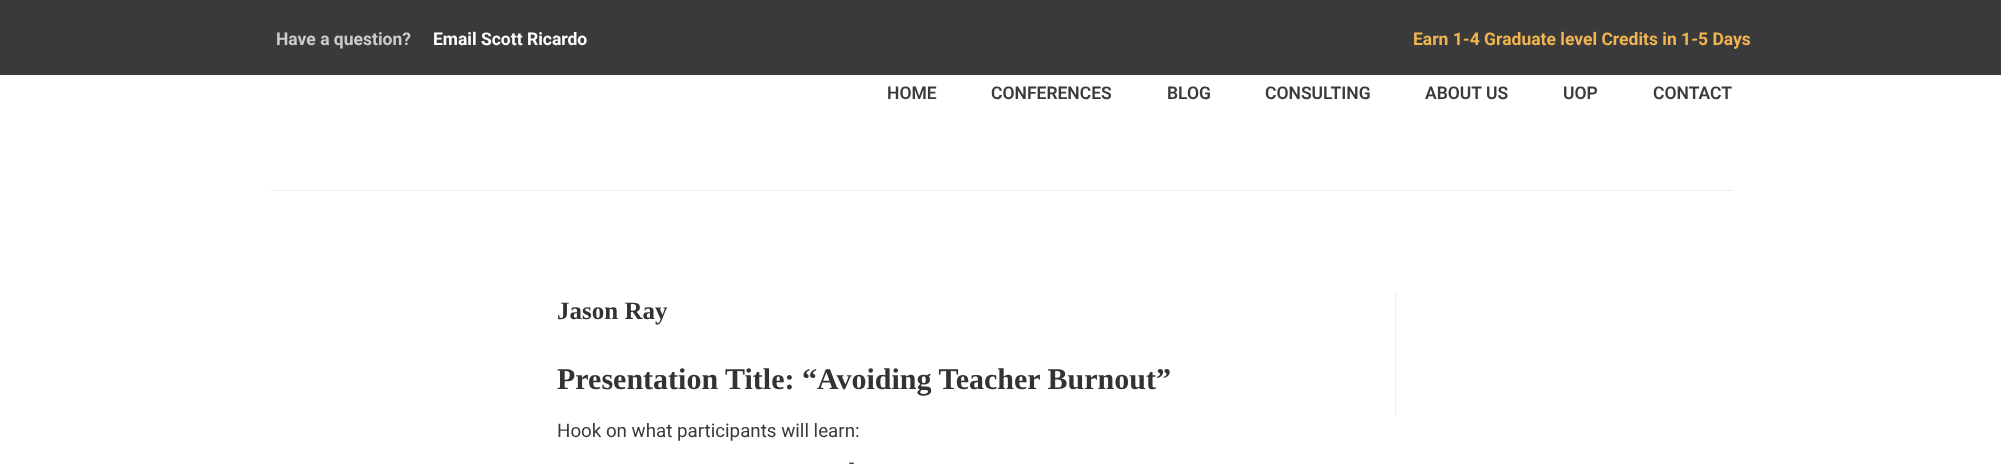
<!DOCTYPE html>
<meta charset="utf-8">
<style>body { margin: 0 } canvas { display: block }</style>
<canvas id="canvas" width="2001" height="464"></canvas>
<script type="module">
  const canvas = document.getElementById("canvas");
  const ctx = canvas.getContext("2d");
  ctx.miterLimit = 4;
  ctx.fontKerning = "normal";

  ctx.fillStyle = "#ffffff";
  ctx.fillRect(0, 0, 2001, 464);
  ctx.fillStyle = "#3a3a3a";
  ctx.fillRect(0, 0, 2001, 75);
  ctx.font = "bold 17.5px Roboto";
  ctx.fillStyle = "#cccccc";
  ctx.fillText("Have a question?", 276, 45);
  ctx.fillStyle = "#ffffff";
  ctx.fillText("Email Scott Ricardo", 433, 45);
  ctx.fillStyle = "#f0b450";
  ctx.fillText("Earn 1-4 Graduate level Credits in 1-5 Days", 1413, 45);
  ctx.font = "600 17.5px Roboto";
  ctx.fillStyle = "#3a3a3a";
  ctx.fillText("HOME", 887, 99);
  ctx.fillText("CONFERENCES", 991, 99);
  ctx.fillText("BLOG", 1167, 99);
  ctx.fillText("CONSULTING", 1265, 99);
  ctx.fillText("ABOUT US", 1425, 99);
  ctx.fillText("UOP", 1563, 99);
  ctx.fillText("CONTACT", 1653, 99);
  ctx.fillStyle = "#eeeeee";
  ctx.fillRect(270, 190, 1463, 1);
  ctx.font = "bold 25px Liberation Serif";
  ctx.fillStyle = "#333333";
  ctx.fillText("Jason Ray", 557, 319);
  ctx.font = "bold 30px Liberation Serif";
  ctx.fillText("Presentation Title: “Avoiding Teacher Burnout”", 557, 389);
  ctx.font = "18.75px Roboto";
  ctx.fillStyle = "#3a3a3a";
  ctx.fillText("Hook on what participants will learn:", 557, 437);
  ctx.fillText("-", 849, 469);
  ctx.fillStyle = "#eeeeee";
  ctx.fillRect(1395, 291, 1, 125);
</script>
